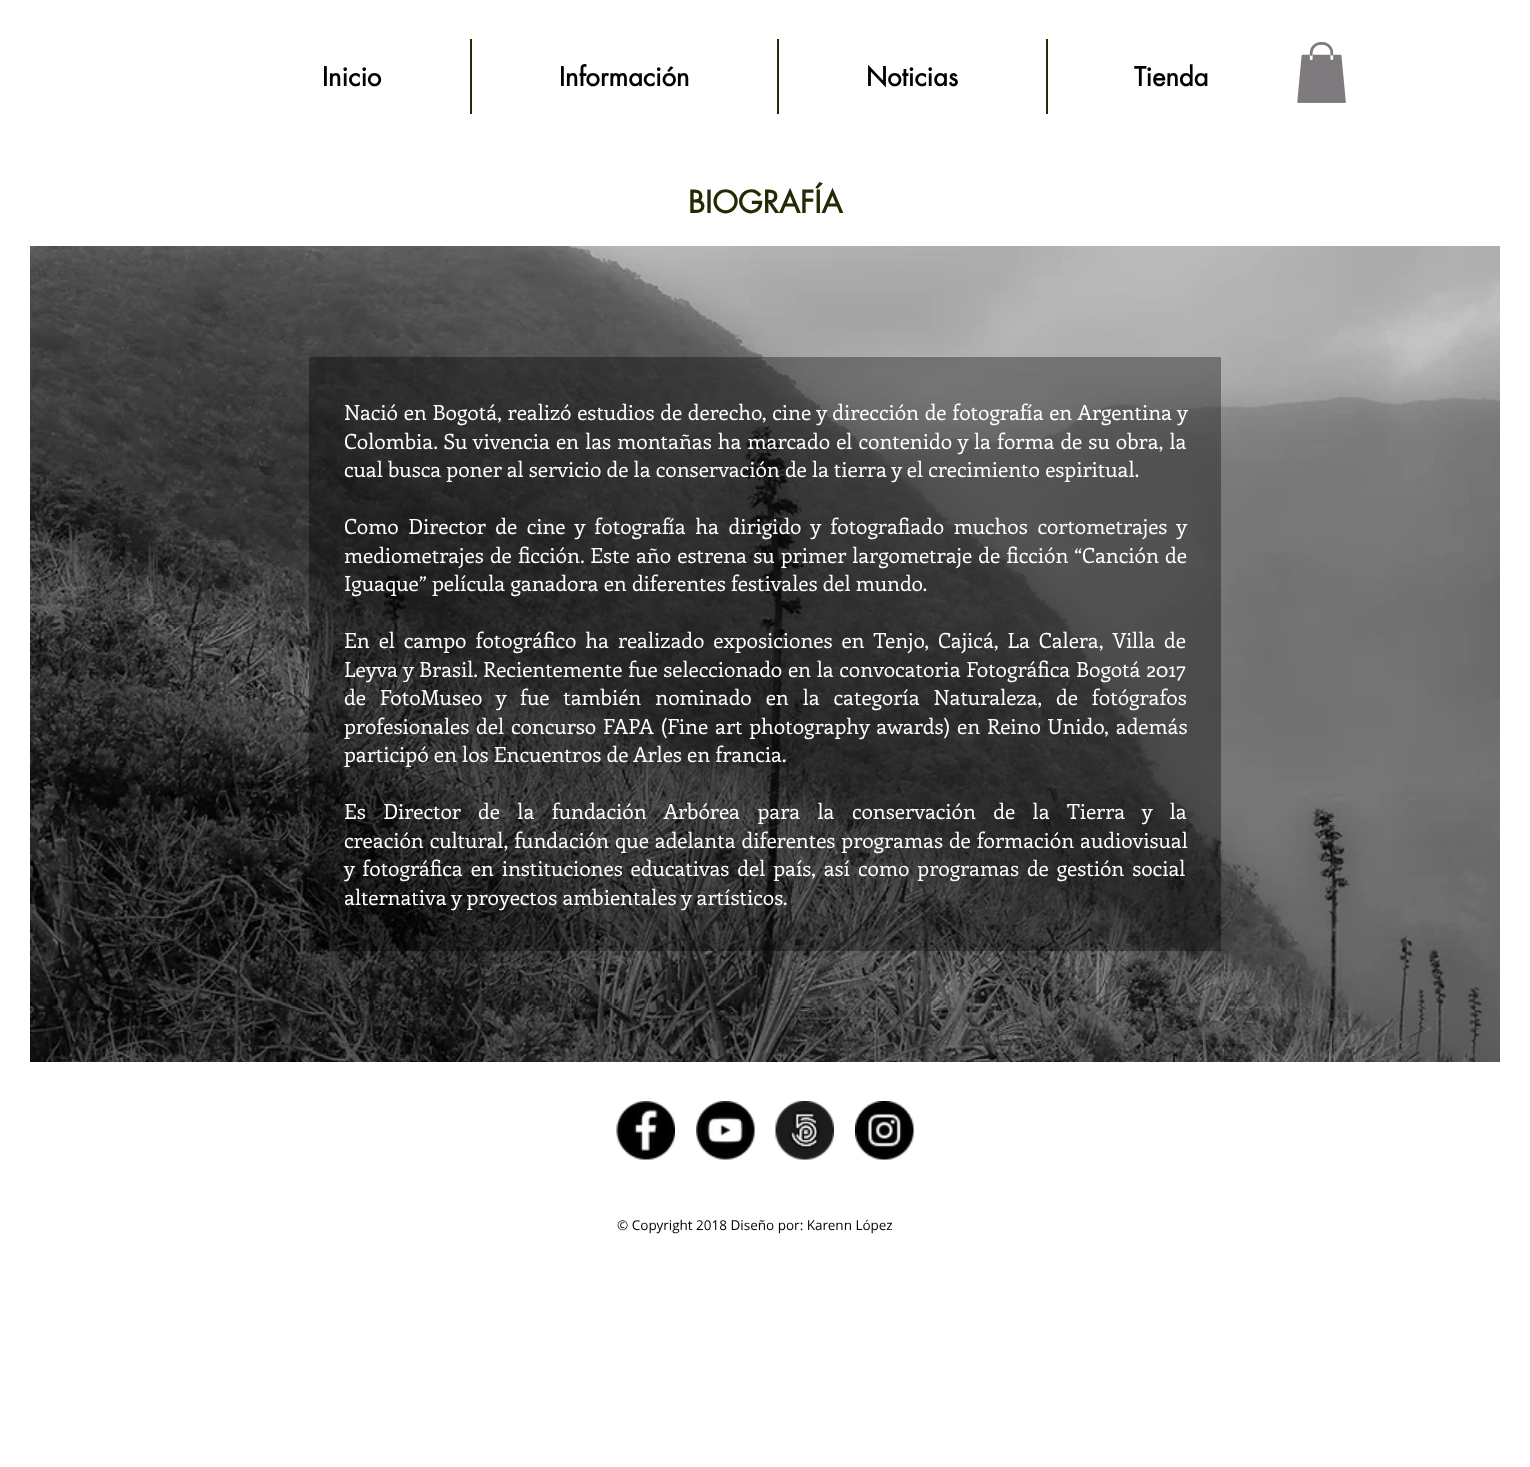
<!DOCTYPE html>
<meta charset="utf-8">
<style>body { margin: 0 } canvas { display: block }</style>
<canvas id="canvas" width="1530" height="1467"></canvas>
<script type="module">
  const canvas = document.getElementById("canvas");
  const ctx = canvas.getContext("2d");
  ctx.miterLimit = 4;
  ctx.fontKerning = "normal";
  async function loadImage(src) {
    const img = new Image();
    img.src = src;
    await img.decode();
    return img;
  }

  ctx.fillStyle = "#ffffff";
  ctx.fillRect(0, 0, 1530, 1467);
  ctx.font = "bold 25.5px futura";
  ctx.fillStyle = "#000000";
  ctx.fillText("Inicio", 322, 86);
  ctx.fillStyle = "#252a04";
  ctx.fillRect(470, 39, 2, 75);
  ctx.fillStyle = "#000000";
  ctx.fillText("Información", 559, 86);
  ctx.fillStyle = "#252a04";
  ctx.fillRect(777, 39, 2, 75);
  ctx.fillStyle = "#000000";
  ctx.fillText("Noticias", 866, 86);
  ctx.fillStyle = "#252a04";
  ctx.fillRect(1046, 39, 2, 75);
  ctx.fillStyle = "#000000";
  ctx.fillText("Tienda", 1134, 86);
  ctx.drawImage(await loadImage("img1.png"), 1297, 42, 49, 61);
  ctx.font = "bold 30px futura";
  ctx.fillStyle = "#252a04";
  ctx.fillText("BIOGRAFÍA", 688, 213);
  ctx.drawImage(await loadImage("img2.png"), 30, 246, 1470, 816);
  ctx.fillStyle = "rgba(0, 0, 0, 0.35)";
  ctx.fillRect(309, 357, 912, 594);
  ctx.wordSpacing = "0.5px";
  ctx.font = "21px Enriqueta";
  ctx.fillStyle = "#ffffff";
  ctx.fillText("Nació en Bogotá, realizó estudios de derecho, cine y dirección de fotografía en Argentina y", 344, 420);
  ctx.wordSpacing = "0.9px";
  ctx.fillText("Colombia. Su vivencia en las montañas ha marcado el contenido y la forma de su obra, la", 344, 449);
  ctx.wordSpacing = "0px";
  ctx.fillText("cual busca poner al servicio de la conservación de la tierra y el crecimiento espiritual.", 344, 477);
  ctx.wordSpacing = "4.4px";
  ctx.fillText("Como Director de cine y fotografía ha dirigido y fotografiado muchos cortometrajes y", 344, 534);
  ctx.wordSpacing = "1px";
  ctx.fillText("mediometrajes de ficción. Este año estrena su primer largometraje de ficción “Canción de", 344, 563);
  ctx.wordSpacing = "0px";
  ctx.fillText("Iguaque” película ganadora en diferentes festivales del mundo.", 344, 591);
  ctx.wordSpacing = "3.75px";
  ctx.fillText("En el campo fotográfico ha realizado exposiciones en Tenjo, Cajicá, La Calera, Villa de", 344, 648);
  ctx.wordSpacing = "0.5px";
  ctx.fillText("Leyva y Brasil. Recientemente fue seleccionado en la convocatoria Fotográfica Bogotá 2017", 344, 677);
  ctx.wordSpacing = "8.75px";
  ctx.fillText("de FotoMuseo y fue también nominado en la categoría Naturaleza, de fotógrafos", 344, 705);
  ctx.wordSpacing = "1.75px";
  ctx.fillText("profesionales del concurso FAPA (Fine art photography awards) en Reino Unido, además", 344, 734);
  ctx.wordSpacing = "0px";
  ctx.fillText("participó en los Encuentros de Arles en francia.", 344, 762);
  ctx.wordSpacing = "12.25px";
  ctx.fillText("Es Director de la fundación Arbórea para la conservación de la Tierra y la", 344, 819);
  ctx.wordSpacing = "0.75px";
  ctx.fillText("creación cultural, fundación que adelanta diferentes programas de formación audiovisual", 344, 848);
  ctx.wordSpacing = "2.75px";
  ctx.fillText("y fotográfica en instituciones educativas del país, así como programas de gestión social", 344, 876);
  ctx.wordSpacing = "0px";
  ctx.fillText("alternativa y proyectos ambientales y artísticos.", 344, 905);
  ctx.drawImage(await loadImage("img3.png"), 616, 1101, 59, 59);
  ctx.drawImage(await loadImage("img4.png"), 696, 1101, 59, 59);
  ctx.drawImage(await loadImage("img5.png"), 775, 1101, 59, 59);
  ctx.drawImage(await loadImage("img6.png"), 855, 1101, 59, 59);
  ctx.font = "13.5px Open Sans";
  ctx.fillStyle = "#000000";
  ctx.fillText("© Copyright 2018 Diseño por: Karenn López", 617, 1230);
</script>
